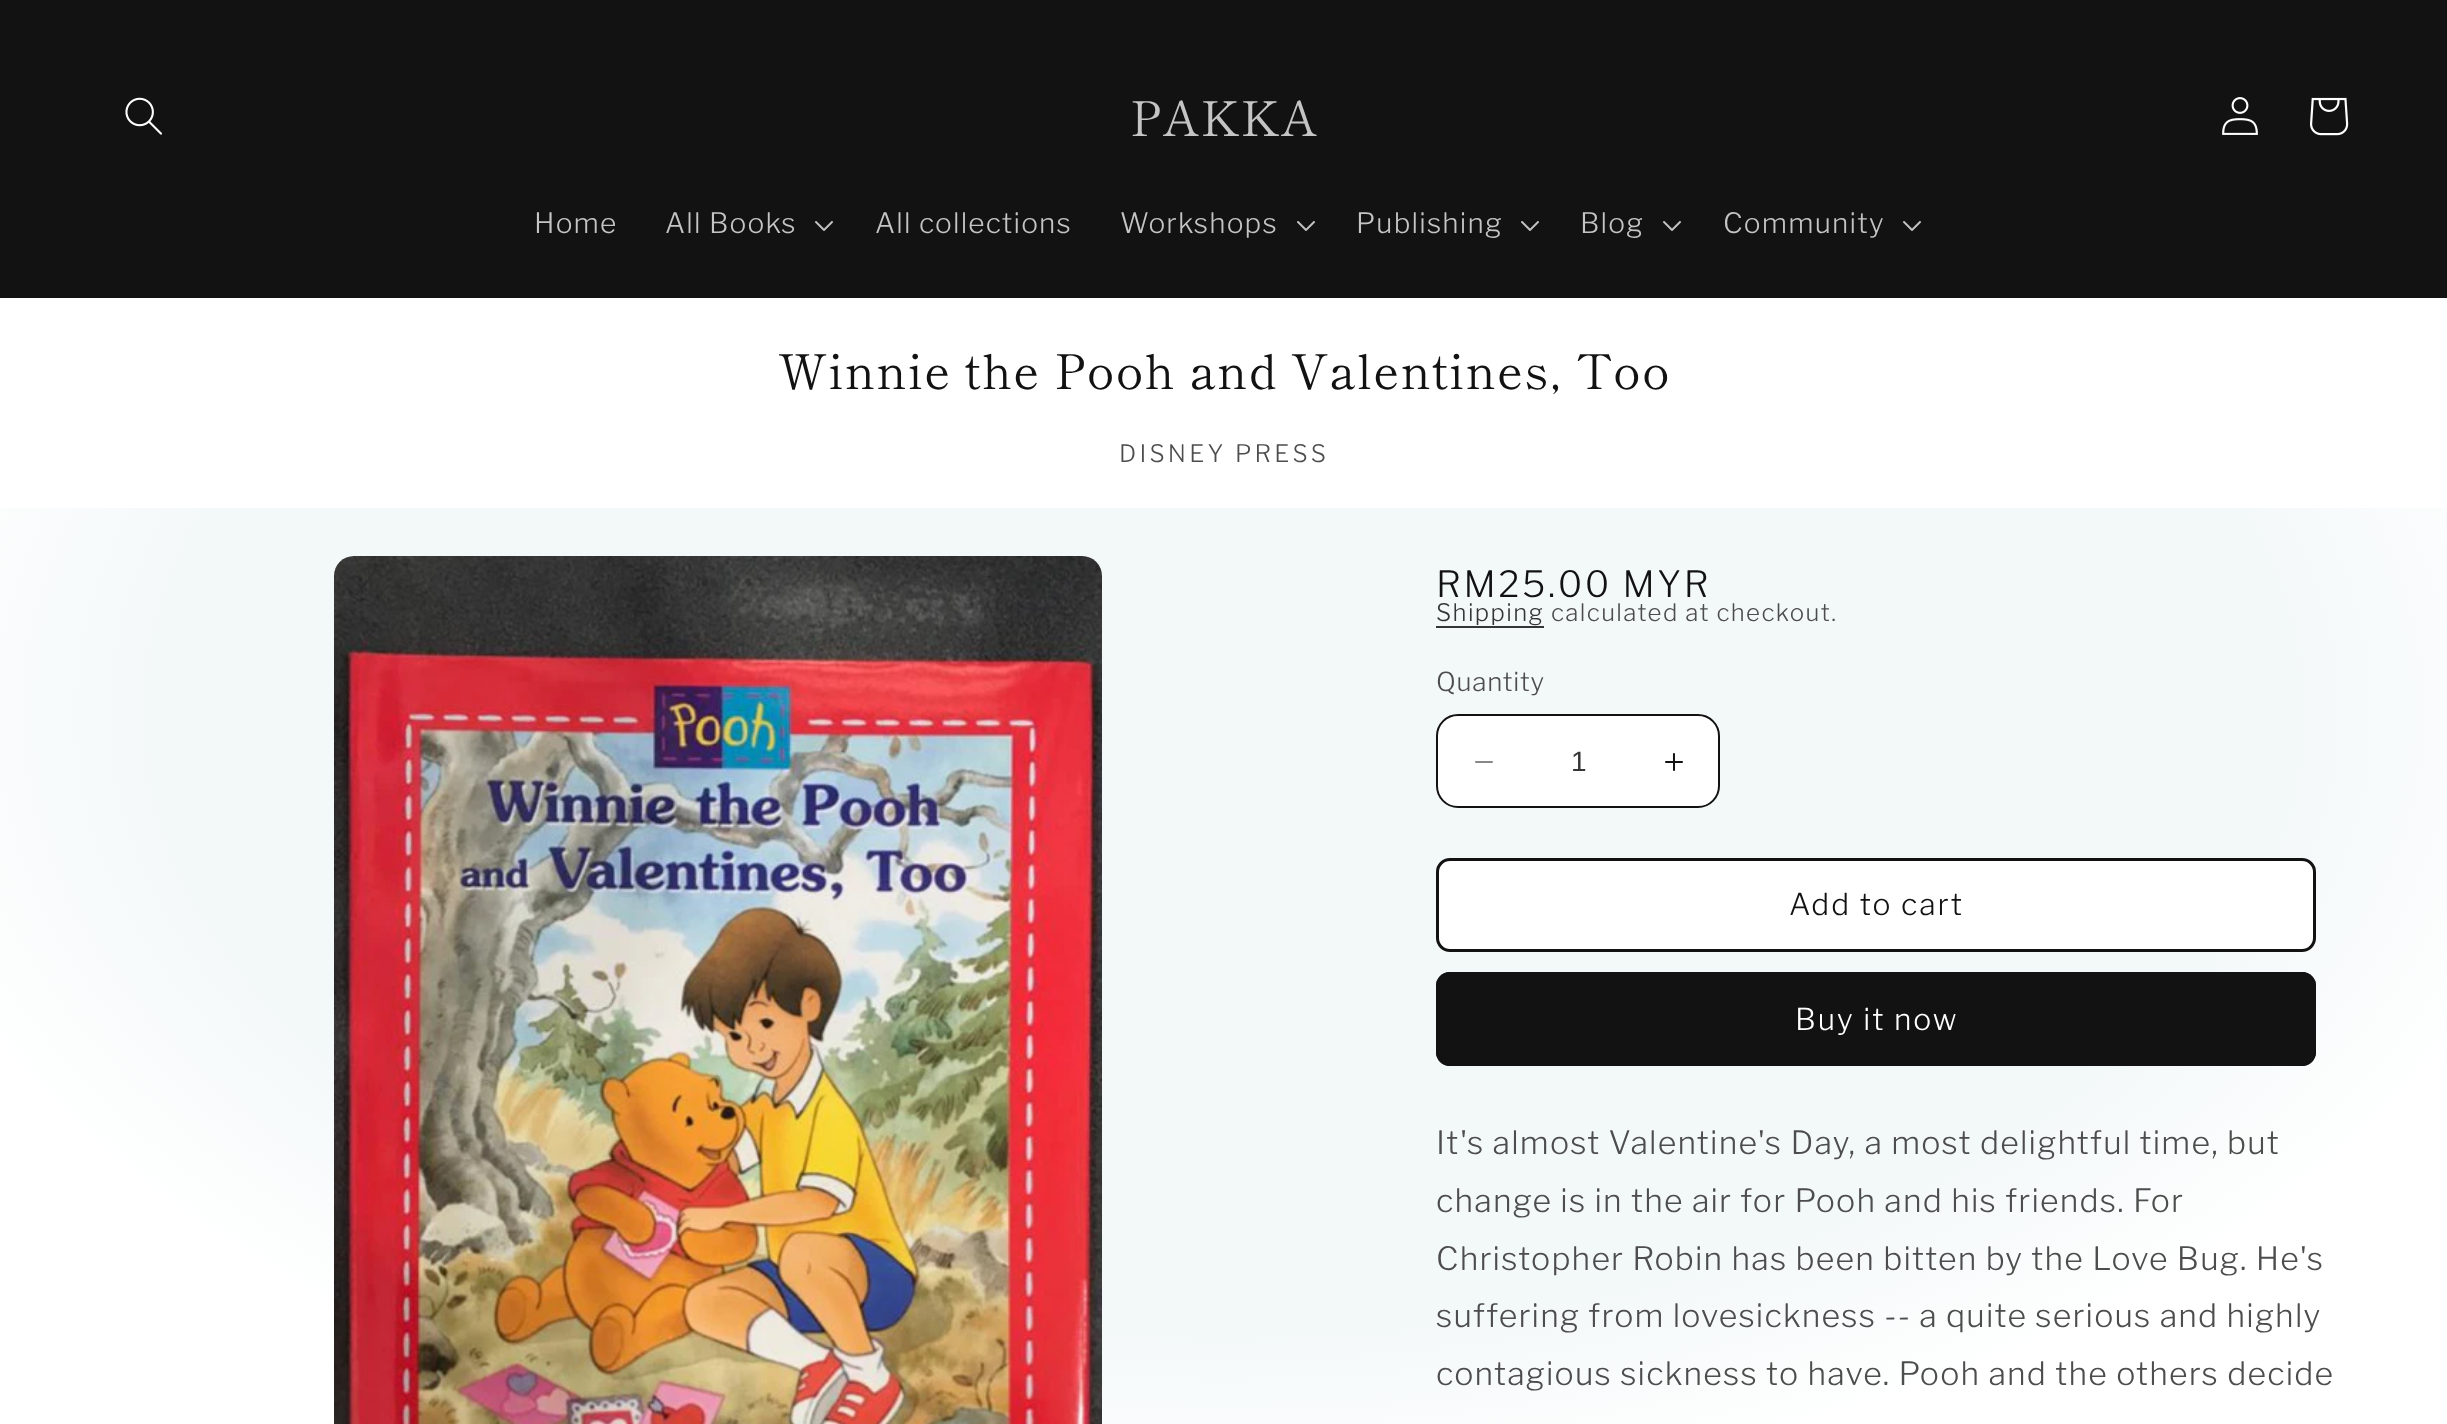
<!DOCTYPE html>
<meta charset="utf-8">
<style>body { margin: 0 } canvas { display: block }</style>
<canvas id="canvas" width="2447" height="1424"></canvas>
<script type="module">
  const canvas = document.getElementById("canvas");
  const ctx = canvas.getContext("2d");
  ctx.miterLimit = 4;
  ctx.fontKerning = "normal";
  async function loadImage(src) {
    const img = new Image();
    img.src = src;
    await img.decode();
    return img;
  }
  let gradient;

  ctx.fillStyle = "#ffffff";
  ctx.fillRect(0, 0, 2447, 1424);
  gradient = ctx.createRadialGradient(1224, 1223.9, 0, 1224, 1223.9, 1731);
  gradient.addColorStop(0.61, "#f3f8f9");
  gradient.addColorStop(0.79, "#ffffff");
  gradient.addColorStop(0.97, "#ffffff");
  ctx.fillStyle = gradient;
  ctx.beginPath();
  ctx.rect(0, 508, 2447, 916);
  ctx.save();
  ctx.clip();
  ctx.scale(1, 1007 / 1731);
  ctx.fillRect(0, 0, 2447, 2448);
  ctx.restore();
  ctx.fillStyle = "#121212";
  ctx.fillRect(0, 0, 2447, 298);
  ctx.drawImage(await loadImage("img1.png"), 125, 97, 37, 38);
  ctx.letterSpacing = "1.2px";
  ctx.font = "48px Shippori Mincho";
  ctx.fillStyle = "#c4c4c4";
  ctx.fillText("PAKKA", 1130, 136);
  ctx.drawImage(await loadImage("img2.png"), 2222, 97, 36, 38);
  ctx.drawImage(await loadImage("img3.png"), 2310, 97, 39, 39);
  ctx.font = "300 28px Libre Franklin";
  ctx.fillText("Home", 534, 233);
  ctx.fillText("All Books", 665, 233);
  ctx.drawImage(await loadImage("img4.png"), 815, 221, 18, 10);
  ctx.fillText("All collections", 875, 233);
  ctx.fillText("Workshops", 1120, 233);
  ctx.drawImage(await loadImage("img4.png"), 1297, 221, 18, 10);
  ctx.fillText("Publishing", 1356, 233);
  ctx.drawImage(await loadImage("img4.png"), 1521, 221, 18, 10);
  ctx.fillText("Blog", 1580, 233);
  ctx.drawImage(await loadImage("img4.png"), 1663, 221, 18, 10);
  ctx.fillText("Community", 1723, 233);
  ctx.drawImage(await loadImage("img4.png"), 1903, 221, 18, 10);
  ctx.font = "48px Shippori Mincho";
  ctx.fillStyle = "#121212";
  ctx.fillText("Winnie the Pooh and Valentines, Too", 778, 389);
  ctx.letterSpacing = "3.25px";
  ctx.font = "300 24px Libre Franklin";
  ctx.fillStyle = "#4d4d4d";
  ctx.fillText("DISNEY PRESS", 1119, 462);
  ctx.drawImage(await loadImage("img5.png"), 334, 556, 768, 868);
  ctx.letterSpacing = "2.6px";
  ctx.font = "300 36px Libre Franklin";
  ctx.fillStyle = "#121212";
  ctx.fillText("RM25.00 MYR", 1436, 597);
  ctx.letterSpacing = "1.4px";
  ctx.font = "300 24px Libre Franklin";
  ctx.fillStyle = "#343535";
  ctx.fillText("Shipping", 1436, 621);
  ctx.fillRect(1436, 626, 108, 2);
  ctx.fillStyle = "#4d4d4d";
  ctx.fillText("calculated at checkout.", 1551, 621);
  ctx.letterSpacing = "0.75px";
  ctx.font = "300 26px Libre Franklin";
  ctx.fillText("Quantity", 1436, 691);
  ctx.fillStyle = "#ffffff";
  ctx.beginPath();
  ctx.roundRect(1436, 714, 284, 94, 22);
  ctx.fill();
  ctx.drawImage(await loadImage("img6.png"), 1475, 761, 18, 2);
  ctx.drawImage(await loadImage("img7.png"), 1665, 753, 18, 18);
  ctx.beginPath();
  ctx.roundRect(1437, 715, 282, 92, 21);
  ctx.strokeStyle = "#121212";
  ctx.lineWidth = 2;
  ctx.stroke();
  ctx.letterSpacing = "0px";
  ctx.font = "28px Liberation Sans";
  ctx.fillStyle = "#343535";
  ctx.fillText("1", 1571, 771);
  ctx.fillStyle = "#ffffff";
  ctx.beginPath();
  ctx.roundRect(1436, 858, 880, 94, 14);
  ctx.fill();
  ctx.beginPath();
  ctx.roundRect(1437, 859, 878, 92, 13);
  ctx.strokeStyle = "#ffffff";
  ctx.stroke();
  ctx.beginPath();
  ctx.roundRect(1437.5, 859.5, 877, 91, 12.5);
  ctx.strokeStyle = "#121212";
  ctx.lineWidth = 3;
  ctx.stroke();
  ctx.letterSpacing = "2px";
  ctx.font = "300 30px Libre Franklin";
  ctx.fillStyle = "#121212";
  ctx.fillText("Add to cart", 1789, 915);
  ctx.beginPath();
  ctx.roundRect(1436, 972, 880, 94, 14);
  ctx.fill();
  ctx.beginPath();
  ctx.roundRect(1437, 973, 878, 92, 13);
  ctx.lineWidth = 2;
  ctx.stroke();
  ctx.fillStyle = "#ffffff";
  ctx.fillText("Buy it now", 1795, 1030);
  ctx.letterSpacing = "1.2px";
  ctx.font = "300 32px Libre Franklin";
  ctx.fillStyle = "#4d4d4d";
  ctx.fillText("It's almost Valentine's Day, a most delightful time, but", 1436, 1154);
  ctx.fillText("change is in the air for Pooh and his friends. For", 1436, 1212);
  ctx.fillText("Christopher Robin has been bitten by the Love Bug. He's", 1436, 1270);
  ctx.fillText("suffering from lovesickness -- a quite serious and highly", 1436, 1327);
  ctx.fillText("contagious sickness to have. Pooh and the others decide", 1436, 1385);
</script>
